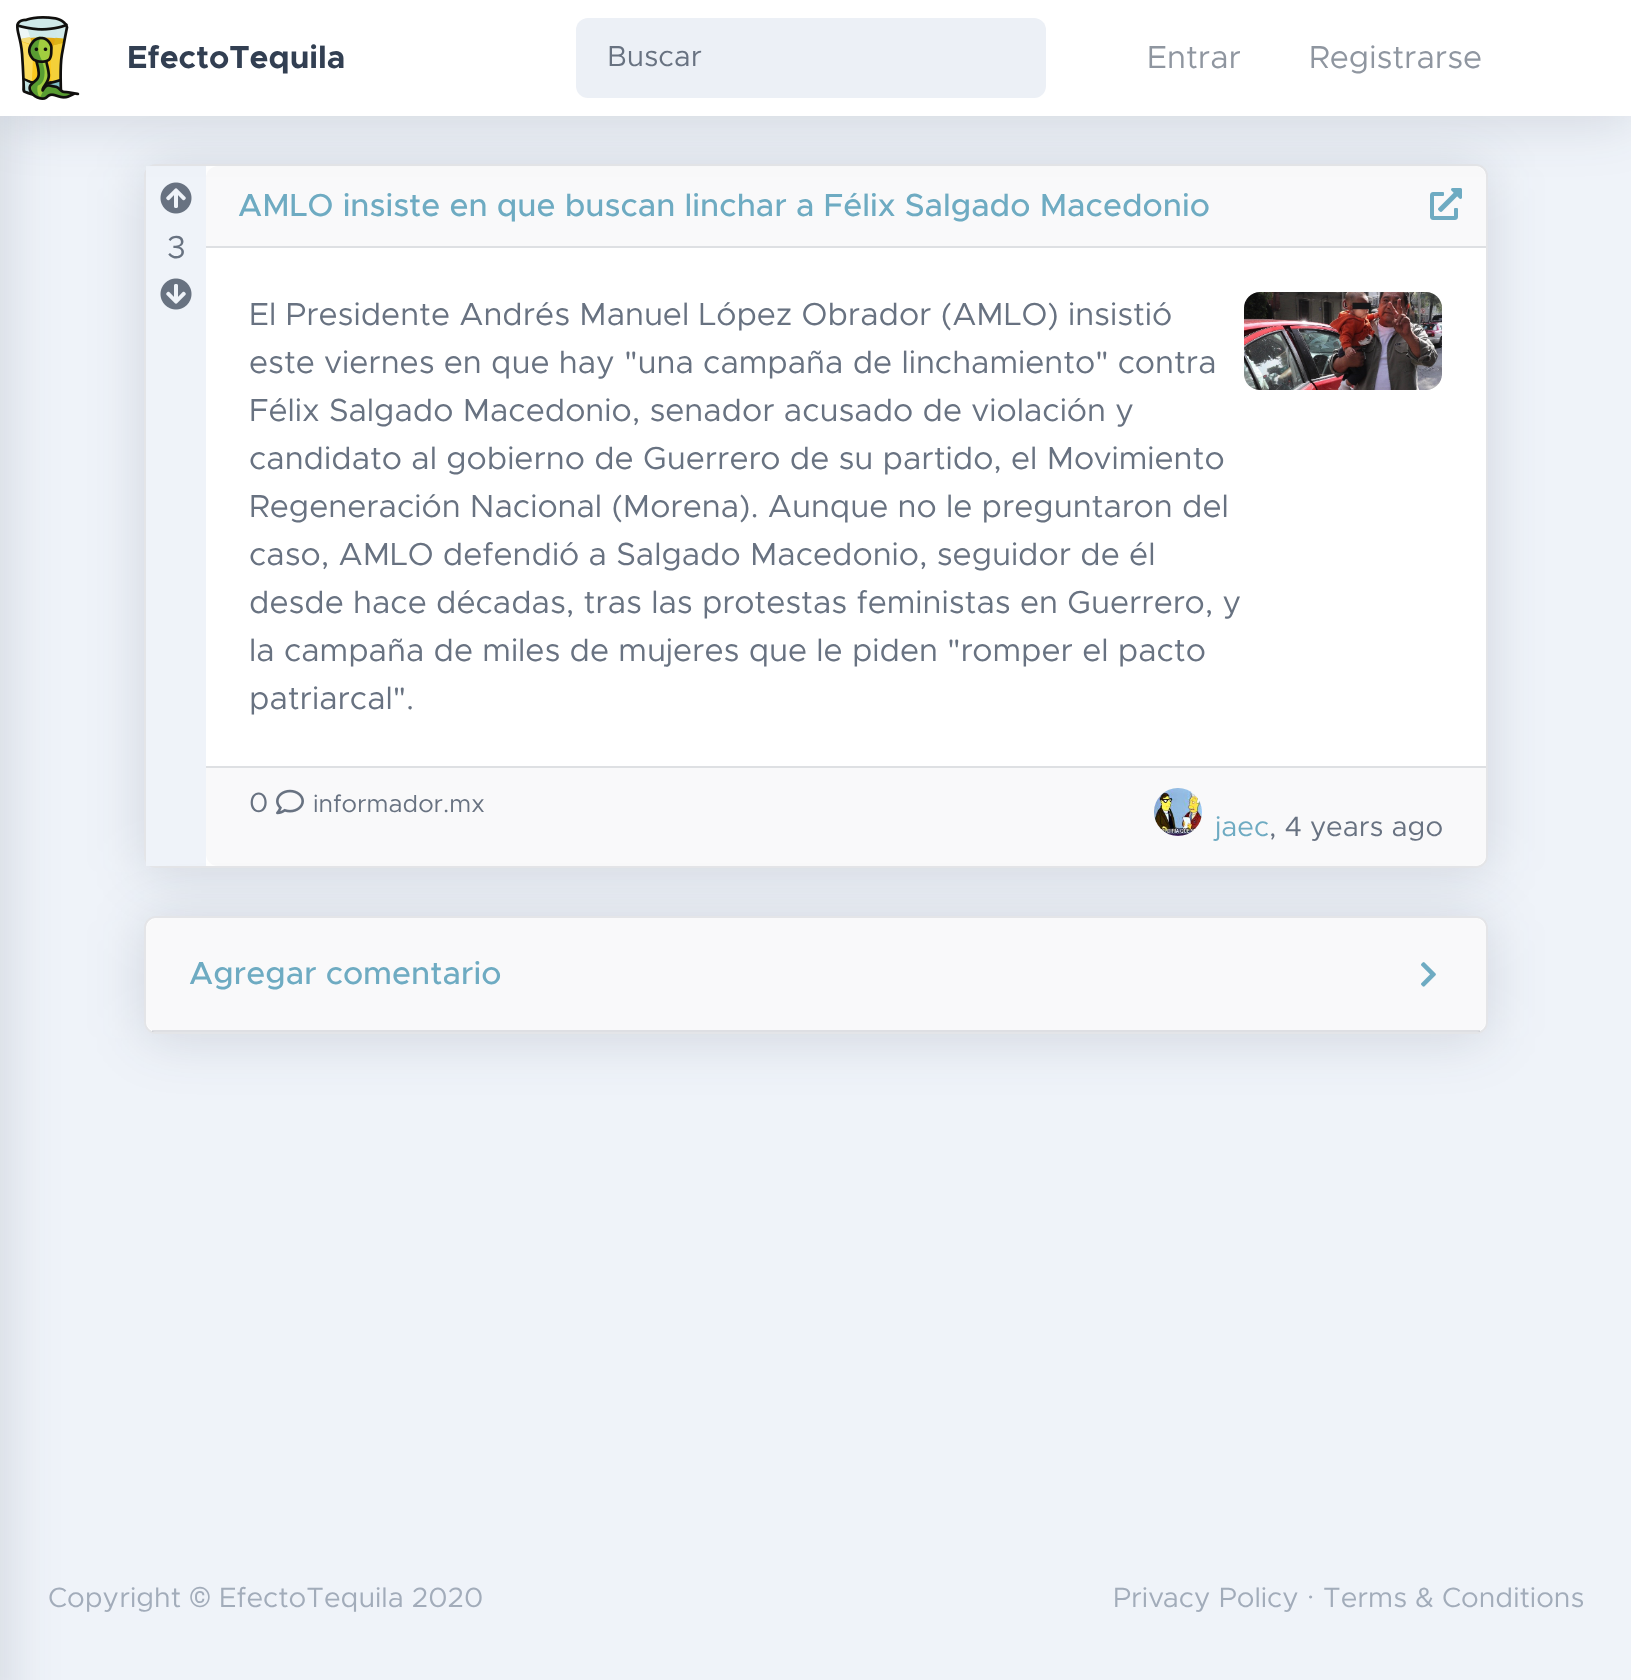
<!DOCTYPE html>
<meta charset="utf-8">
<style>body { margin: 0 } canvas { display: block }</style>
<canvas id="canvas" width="1631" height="1680"></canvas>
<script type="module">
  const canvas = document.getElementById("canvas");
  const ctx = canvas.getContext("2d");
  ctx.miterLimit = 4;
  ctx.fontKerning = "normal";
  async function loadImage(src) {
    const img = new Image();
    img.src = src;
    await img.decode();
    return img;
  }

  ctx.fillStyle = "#eff3f9";
  ctx.fillRect(0, 0, 1631, 1680);
  ctx.fillStyle = "rgba(31, 45, 65, 0.15)";
  ctx.filter = "blur(28px)";
  ctx.beginPath();
  ctx.roundRect(144, 168, 1344, 704, 12);
  ctx.fill();
  ctx.filter = "none";
  ctx.fillStyle = "#ffffff";
  ctx.beginPath();
  ctx.roundRect(144, 164, 1344, 704, 12);
  ctx.fill();
  ctx.beginPath();
  ctx.roundRect(145, 165, 1342, 702, 11);
  ctx.strokeStyle = "rgba(31, 45, 65, 0.12)";
  ctx.lineWidth = 2;
  ctx.stroke();
  ctx.fillStyle = "#eff3f9";
  ctx.fillRect(146, 166, 60, 700);
  ctx.drawImage(await loadImage("img2.png"), 160, 182, 32, 32);
  ctx.fillStyle = "#f9f9fa";
  ctx.beginPath();
  ctx.roundRect(206, 166, 1280, 82, [12, 12, 0, 0]);
  ctx.fill();
  ctx.drawImage(await loadImage("img4.png"), 1430, 188, 32, 32);
  ctx.fillStyle = "rgba(31, 45, 65, 0.15)";
  ctx.filter = "blur(28px)";
  ctx.beginPath();
  ctx.rect(0, 4, 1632, 116);
  ctx.fill();
  ctx.filter = "none";
  ctx.filter = "blur(28px)";
  ctx.beginPath();
  ctx.rect(-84, 48, 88, 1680);
  ctx.fill();
  ctx.filter = "none";
  ctx.fillStyle = "#ffffff";
  ctx.fillRect(0, 0, 1631, 116);
  ctx.drawImage(await loadImage("img1.png"), 16, 16, 64, 84);
  ctx.font = "bold 32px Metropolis";
  ctx.fillStyle = "#323f52";
  ctx.fillText("EfectoTequila", 127, 68);
  ctx.fillStyle = "#ecf0f6";
  ctx.beginPath();
  ctx.roundRect(576, 18, 470, 80, 12);
  ctx.fill();
  ctx.font = "29px Metropolis";
  ctx.fillStyle = "#687281";
  ctx.fillText("Buscar", 607, 66);
  ctx.font = "32px Metropolis";
  ctx.fillStyle = "#8f96a0";
  ctx.fillText("Entrar", 1147, 68);
  ctx.fillText("Registrarse", 1309, 68);
  ctx.fillStyle = "#687281";
  ctx.fillText("3", 167, 258);
  ctx.drawImage(await loadImage("img3.png"), 160, 278, 32, 32);
  ctx.fillStyle = "#dee0e3";
  ctx.fillRect(206, 246, 1280, 2);
  ctx.font = "500 32px Metropolis";
  ctx.fillStyle = "#6eabc2";
  ctx.fillText("AMLO insiste en que buscan linchar a Félix Salgado Macedonio", 238, 216);
  ctx.font = "32px Metropolis";
  ctx.fillStyle = "#687281";
  ctx.fillText("El Presidente Andrés Manuel López Obrador (AMLO) insistió", 249, 325);
  ctx.fillText("este viernes en que hay \"una campaña de linchamiento\" contra", 249, 373);
  ctx.fillText("Félix Salgado Macedonio, senador acusado de violación y", 249, 421);
  ctx.fillText("candidato al gobierno de Guerrero de su partido, el Movimiento", 249, 469);
  ctx.fillText("Regeneración Nacional (Morena). Aunque no le preguntaron del", 249, 517);
  ctx.fillText("caso, AMLO defendió a Salgado Macedonio, seguidor de él", 249, 565);
  ctx.fillText("desde hace décadas, tras las protestas feministas en Guerrero, y", 249, 613);
  ctx.fillText("la campaña de miles de mujeres que le piden \"romper el pacto", 249, 661);
  ctx.fillText("patriarcal\".", 249, 709);
  ctx.drawImage(await loadImage("img5.png"), 1244, 292, 198, 98);
  ctx.fillStyle = "#f9f9fa";
  ctx.beginPath();
  ctx.roundRect(206, 766, 1280, 100, [0, 0, 12, 12]);
  ctx.fill();
  ctx.fillStyle = "#dee0e3";
  ctx.fillRect(206, 766, 1280, 2);
  ctx.font = "28px Metropolis";
  ctx.fillStyle = "#687281";
  ctx.fillText("0", 249, 812);
  ctx.drawImage(await loadImage("img6.png"), 276, 789, 28, 26);
  ctx.font = "24.5px Metropolis";
  ctx.fillText("informador.mx", 313, 812);
  ctx.drawImage(await loadImage("img7.png"), 1154, 788, 48, 48);
  ctx.font = "28px Metropolis";
  ctx.fillStyle = "#6eabc2";
  ctx.fillText("jaec", 1215, 836);
  ctx.fillStyle = "#687281";
  ctx.fillText(", 4 years ago", 1269, 836);
  ctx.fillStyle = "rgba(31, 45, 65, 0.15)";
  ctx.filter = "blur(28px)";
  ctx.beginPath();
  ctx.roundRect(144, 920, 1344, 118, 12);
  ctx.fill();
  ctx.filter = "none";
  ctx.fillStyle = "#ffffff";
  ctx.beginPath();
  ctx.roundRect(144, 916, 1344, 118, 12);
  ctx.fill();
  ctx.beginPath();
  ctx.roundRect(145, 917, 1342, 116, 11);
  ctx.stroke();
  ctx.fillStyle = "#f9f9fa";
  ctx.beginPath();
  ctx.roundRect(146, 918, 1340, 114, 12);
  ctx.fill();
  ctx.fillStyle = "rgba(31, 45, 65, 0.12)";
  ctx.fillRect(152, 1030, 1328, 2);
  ctx.font = "500 32px Metropolis";
  ctx.fillStyle = "#6eabc2";
  ctx.fillText("Agregar comentario", 189, 984);
  ctx.drawImage(await loadImage("img8.png"), 1421, 962, 15, 25);
  ctx.font = "28px Metropolis";
  ctx.fillStyle = "#a2acba";
  ctx.fillText("Copyright", 48, 1607);
  ctx.font = "28px Roboto";
  ctx.fillText("©", 189, 1607);
  ctx.font = "28px Metropolis";
  ctx.fillText("EfectoTequila 2020", 219, 1607);
  ctx.fillText("Privacy Policy", 1113, 1607);
  ctx.font = "28px Roboto";
  ctx.fillText("·", 1307, 1607);
  ctx.font = "28px Metropolis";
  ctx.fillText("Terms & Conditions", 1323, 1607);
</script>
